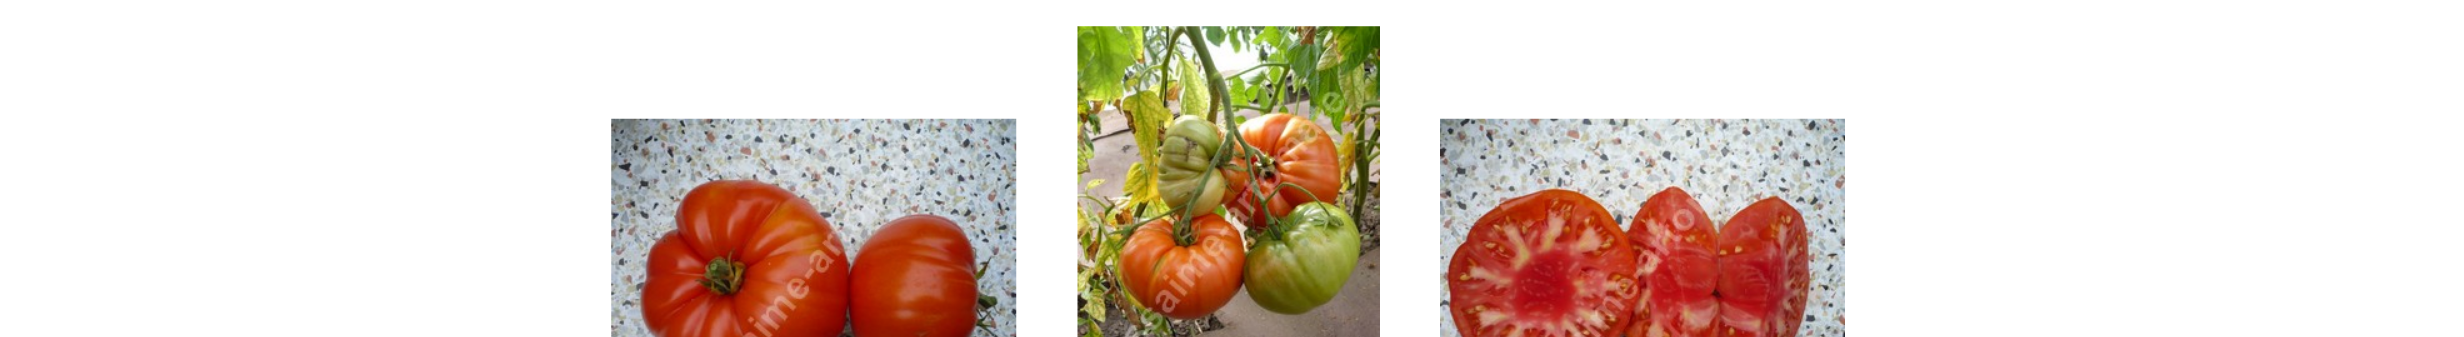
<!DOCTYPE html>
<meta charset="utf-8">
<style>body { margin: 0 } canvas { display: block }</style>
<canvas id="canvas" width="2464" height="337"></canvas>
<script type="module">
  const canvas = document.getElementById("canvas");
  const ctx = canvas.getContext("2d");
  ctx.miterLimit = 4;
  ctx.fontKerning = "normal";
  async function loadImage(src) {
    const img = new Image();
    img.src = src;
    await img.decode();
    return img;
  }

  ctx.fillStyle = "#ffffff";
  ctx.fillRect(0, 0, 2464, 337);
  ctx.drawImage(await loadImage("img1.png"), 611, 118, 406, 219);
  ctx.drawImage(await loadImage("img2.png"), 1077, 26, 303, 311);
  ctx.drawImage(await loadImage("img3.png"), 1440, 118, 405, 219);
</script>
